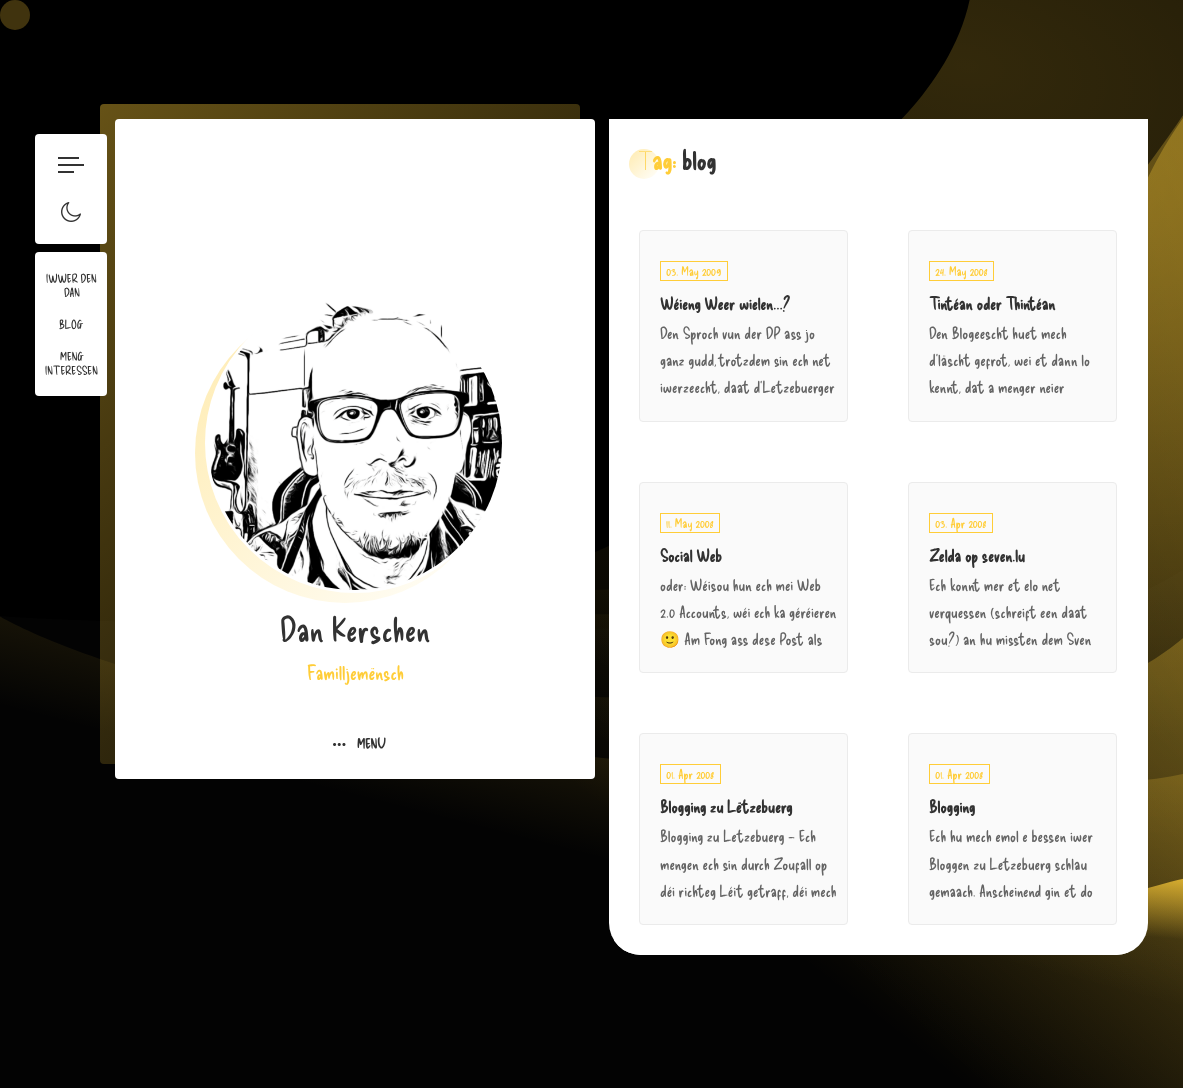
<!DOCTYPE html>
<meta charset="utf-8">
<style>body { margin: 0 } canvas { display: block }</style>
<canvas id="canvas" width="1183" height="1088"></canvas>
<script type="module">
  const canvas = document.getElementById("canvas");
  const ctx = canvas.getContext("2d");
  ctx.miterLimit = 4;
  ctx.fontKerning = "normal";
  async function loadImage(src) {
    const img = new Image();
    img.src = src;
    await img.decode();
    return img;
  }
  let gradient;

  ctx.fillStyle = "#ffffff";
  ctx.fillRect(0, 0, 1183, 1088);
  ctx.drawImage(await loadImage("img1.png"), 0, 0, 1183, 1088);
  ctx.fillStyle = "#40330e";
  ctx.beginPath();
  ctx.arc(15, 15, 15, 0, Math.PI * 2);
  ctx.fill();
  gradient = ctx.createLinearGradient(55, 149, 625, 719);
  gradient.addColorStop(0, "rgba(255, 205, 56, 0.4)");
  gradient.addColorStop(1, "rgba(255, 205, 56, 0.01)");
  ctx.fillStyle = gradient;
  ctx.beginPath();
  ctx.roundRect(100, 104, 480, 660, 4);
  ctx.fill();
  ctx.fillStyle = "#ffffff";
  ctx.beginPath();
  ctx.roundRect(35, 134, 72, 62, [4, 4, 0, 0]);
  ctx.fill();
  ctx.fillStyle = "#323232";
  ctx.fillRect(58, 164, 26, 2);
  ctx.fillRect(58, 157, 21, 2);
  ctx.fillRect(58, 171, 16, 2);
  ctx.fillStyle = "#ffffff";
  ctx.beginPath();
  ctx.roundRect(35, 182, 72, 62, [0, 0, 4, 4]);
  ctx.fill();
  ctx.drawImage(await loadImage("img2.png"), 61, 202, 20, 20);
  ctx.beginPath();
  ctx.roundRect(35, 252, 72, 144, 4);
  ctx.fill();
  ctx.font = "12px Delicious Handrawn";
  ctx.fillStyle = "#323232";
  ctx.fillText("IWWER DEN", 46, 283);
  ctx.fillText("DAN", 64, 297);
  ctx.fillText("BLOG", 59, 329);
  ctx.fillText("MENG", 60, 361);
  ctx.fillText("INTERESSEN", 45, 375);
  ctx.fillStyle = "#ffffff";
  ctx.beginPath();
  ctx.roundRect(609, 119, 539, 836, [0, 0, 32, 32]);
  ctx.fill();
  gradient = ctx.createLinearGradient(629, 149, 659, 179);
  gradient.addColorStop(0, "#ffebaf");
  gradient.addColorStop(1, "#fffffd");
  ctx.fillStyle = gradient;
  ctx.beginPath();
  ctx.arc(644, 164, 15, 0, Math.PI * 2);
  ctx.fill();
  ctx.font = "bold 26px Delicious Handrawn";
  ctx.fillStyle = "#323232";
  ctx.fillText("blog", 682, 170);
  ctx.font = "100 26px Noto Sans";
  ctx.fillStyle = "#ffcd38";
  ctx.fillText("T", 639, 170);
  ctx.font = "bold 26px Delicious Handrawn";
  ctx.fillText("ag:", 652, 170);
  ctx.fillStyle = "#fafafa";
  ctx.beginPath();
  ctx.roundRect(639.5, 230.5, 208, 191, 3.5);
  ctx.fill();
  ctx.strokeStyle = "#ebebeb";
  ctx.stroke();
  ctx.strokeStyle = "#ffcd38";
  ctx.strokeRect(660.5, 261.5, 67, 19);
  ctx.font = "13px Delicious Handrawn";
  ctx.fillStyle = "#ffcd38";
  ctx.fillText("03. May 2009", 666, 276);
  ctx.font = "bold 17px Delicious Handrawn";
  ctx.fillStyle = "#323232";
  ctx.fillText("Wéieng Weer wielen…?", 660, 310);
  ctx.font = "16px Delicious Handrawn";
  ctx.fillStyle = "#646464";
  ctx.fillText("Den Sproch vun der DP ass jo", 660, 339);
  ctx.fillText("ganz gudd, trotzdem sin ech net", 660, 366);
  ctx.fillText("iwerzeecht, daat d’Letzebuerger", 660, 393);
  ctx.fillStyle = "#fafafa";
  ctx.beginPath();
  ctx.roundRect(908.5, 230.5, 208, 191, 3.5);
  ctx.fill();
  ctx.strokeStyle = "#ebebeb";
  ctx.stroke();
  ctx.strokeStyle = "#ffcd38";
  ctx.strokeRect(929.5, 261.5, 64, 19);
  ctx.font = "13px Delicious Handrawn";
  ctx.fillStyle = "#ffcd38";
  ctx.fillText("24. May 2008", 935, 276);
  ctx.font = "bold 17px Delicious Handrawn";
  ctx.fillStyle = "#323232";
  ctx.fillText("Tintéan oder Thintéan", 929, 310);
  ctx.font = "16px Delicious Handrawn";
  ctx.fillStyle = "#646464";
  ctx.fillText("Den Blogeescht huet mech", 929, 339);
  ctx.fillText("d’läscht gefrot, wei et dann lo", 929, 366);
  ctx.fillText("kennt, dat a menger neier", 929, 393);
  ctx.fillStyle = "#fafafa";
  ctx.beginPath();
  ctx.roundRect(639.5, 482.5, 208, 190, 3.5);
  ctx.fill();
  ctx.strokeStyle = "#ebebeb";
  ctx.stroke();
  ctx.strokeStyle = "#ffcd38";
  ctx.strokeRect(660.5, 513.5, 59, 19);
  ctx.font = "13px Delicious Handrawn";
  ctx.fillStyle = "#ffcd38";
  ctx.fillText("11. May 2008", 666, 528);
  ctx.font = "bold 17px Delicious Handrawn";
  ctx.fillStyle = "#323232";
  ctx.fillText("Social Web", 660, 562);
  ctx.font = "16px Delicious Handrawn";
  ctx.fillStyle = "#646464";
  ctx.fillText("oder: Wéisou hun ech mei Web", 660, 591);
  ctx.fillText("2.0 Accounts, wéi ech ka géréieren", 660, 618);
  ctx.font = "16px Noto Color Emoji";
  ctx.fillText("🙂", 660, 645);
  ctx.font = "16px Delicious Handrawn";
  ctx.fillText("Am Fong ass dese Post als", 684, 645);
  ctx.fillStyle = "#fafafa";
  ctx.beginPath();
  ctx.roundRect(908.5, 482.5, 208, 190, 3.5);
  ctx.fill();
  ctx.strokeStyle = "#ebebeb";
  ctx.stroke();
  ctx.strokeStyle = "#ffcd38";
  ctx.strokeRect(929.5, 513.5, 63, 19);
  ctx.font = "13px Delicious Handrawn";
  ctx.fillStyle = "#ffcd38";
  ctx.fillText("03. Apr 2008", 935, 528);
  ctx.font = "bold 17px Delicious Handrawn";
  ctx.fillStyle = "#323232";
  ctx.fillText("Zelda op seven.lu", 929, 562);
  ctx.font = "16px Delicious Handrawn";
  ctx.fillStyle = "#646464";
  ctx.fillText("Ech konnt mer et elo net", 929, 591);
  ctx.fillText("verquessen (schreift een daat", 929, 618);
  ctx.fillText("sou?) an hu missten dem Sven", 929, 645);
  ctx.fillStyle = "#fafafa";
  ctx.beginPath();
  ctx.roundRect(639.5, 733.5, 208, 191, 3.5);
  ctx.fill();
  ctx.strokeStyle = "#ebebeb";
  ctx.stroke();
  ctx.strokeStyle = "#ffcd38";
  ctx.strokeRect(660.5, 764.5, 60, 19);
  ctx.font = "13px Delicious Handrawn";
  ctx.fillStyle = "#ffcd38";
  ctx.fillText("01. Apr 2008", 666, 779);
  ctx.font = "bold 17px Delicious Handrawn";
  ctx.fillStyle = "#323232";
  ctx.fillText("Blogging zu Lëtzebuerg", 660, 813);
  ctx.font = "16px Delicious Handrawn";
  ctx.fillStyle = "#646464";
  ctx.fillText("Blogging zu Letzebuerg – Ech", 660, 842);
  ctx.fillText("mengen ech sin durch Zoufall op", 660, 870);
  ctx.fillText("déi richteg Léit getraff, déi mech", 660, 897);
  ctx.fillStyle = "#fafafa";
  ctx.beginPath();
  ctx.roundRect(908.5, 733.5, 208, 191, 3.5);
  ctx.fill();
  ctx.strokeStyle = "#ebebeb";
  ctx.stroke();
  ctx.strokeStyle = "#ffcd38";
  ctx.strokeRect(929.5, 764.5, 60, 19);
  ctx.font = "13px Delicious Handrawn";
  ctx.fillStyle = "#ffcd38";
  ctx.fillText("01. Apr 2008", 935, 779);
  ctx.font = "bold 17px Delicious Handrawn";
  ctx.fillStyle = "#323232";
  ctx.fillText("Blogging", 929, 813);
  ctx.font = "16px Delicious Handrawn";
  ctx.fillStyle = "#646464";
  ctx.fillText("Ech hu mech emol e bessen iwer", 929, 842);
  ctx.fillText("Bloggen zu Letzebuerg schlau", 929, 870);
  ctx.fillText("gemaach. Anscheinend gin et do", 929, 897);
  ctx.save();
  ctx.beginPath();
  ctx.roundRect(609, 119, 539, 836, [0, 0, 32, 32]);
  ctx.clip();
  ctx.fillStyle = "#ffffff";
  ctx.fillRect(614, 940, 514, 15);
  ctx.restore();
  ctx.fillStyle = "#ffffff";
  ctx.beginPath();
  ctx.roundRect(115, 119, 480, 660, 4);
  ctx.fill();
  gradient = ctx.createLinearGradient(195, 303, 495, 603);
  gradient.addColorStop(0, "#ffebaf");
  gradient.addColorStop(1, "#fffffd");
  ctx.fillStyle = gradient;
  ctx.beginPath();
  ctx.arc(345, 453, 150, 0, Math.PI * 2);
  ctx.fill();
  ctx.fillStyle = "#ffffff";
  ctx.beginPath();
  ctx.arc(355, 443, 148.5, 0, Math.PI * 2);
  ctx.fill();
  ctx.strokeStyle = "#ffffff";
  ctx.lineWidth = 3;
  ctx.stroke();
  ctx.drawImage(await loadImage("img3.png"), 211, 302, 291, 288);
  ctx.font = "34px Delicious Handrawn";
  ctx.fillStyle = "#323232";
  ctx.fillText("Dan Kerschen", 280, 642);
  ctx.font = "20px Delicious Handrawn";
  ctx.fillStyle = "#ffcd38";
  ctx.fillText("Familljemënsch", 307, 680);
  ctx.drawImage(await loadImage("img4.png"), 333, 743, 13, 3);
  ctx.font = "bold 14px Delicious Handrawn";
  ctx.fillStyle = "#323232";
  ctx.fillText("MENU", 357, 749);
</script>
